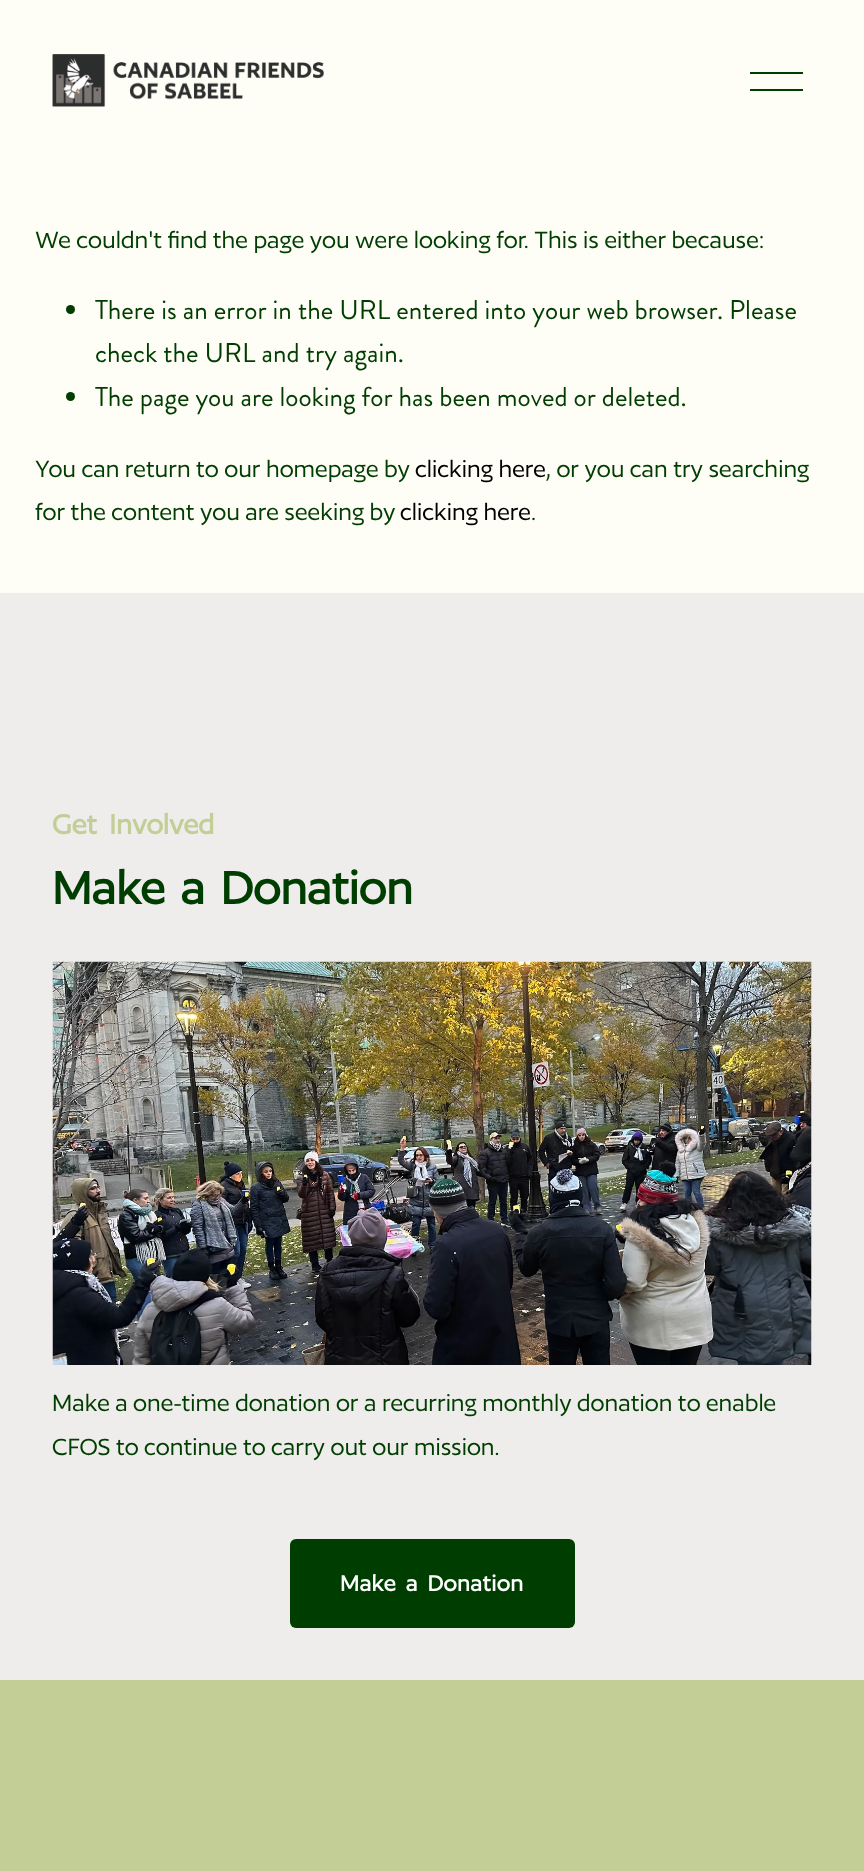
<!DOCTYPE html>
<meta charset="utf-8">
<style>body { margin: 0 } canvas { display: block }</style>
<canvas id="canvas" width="864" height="1871"></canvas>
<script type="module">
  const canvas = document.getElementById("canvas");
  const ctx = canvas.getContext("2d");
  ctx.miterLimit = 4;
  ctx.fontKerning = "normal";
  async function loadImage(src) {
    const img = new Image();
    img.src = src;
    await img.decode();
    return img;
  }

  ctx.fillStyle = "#fffef6";
  ctx.fillRect(0, 0, 864, 1871);
  ctx.drawImage(await loadImage("img1.png"), 52, 54, 273, 53);
  ctx.fillStyle = "#003d00";
  ctx.fillRect(750, 72, 53, 2);
  ctx.fillRect(750, 89, 53, 2);
  ctx.font = "27.25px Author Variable";
  ctx.fillText("We couldn't find the page you were looking for. This is either because:", 35, 248);
  ctx.beginPath();
  ctx.arc(70.5, 309.5, 4.5, 0, Math.PI * 2);
  ctx.fill();
  ctx.font = "27.25px Brandon Grotesque";
  ctx.fillText("There is an error in the URL entered into your web browser. Please", 95, 319);
  ctx.fillText("check the URL and try again.", 95, 362);
  ctx.beginPath();
  ctx.arc(70.5, 396.5, 4.5, 0, Math.PI * 2);
  ctx.fill();
  ctx.fillText("The page you are looking for has been moved or deleted.", 95, 406);
  ctx.font = "27.25px Author Variable";
  ctx.fillText("You can return to our homepage by", 35, 477);
  ctx.fillStyle = "#000000";
  ctx.fillText("clicking here", 415, 477);
  ctx.fillStyle = "#003d00";
  ctx.fillText(", or you can try searching", 546, 477);
  ctx.fillText("for the content you are seeking by", 35, 520);
  ctx.fillStyle = "#000000";
  ctx.fillText("clicking here", 400, 520);
  ctx.fillStyle = "#003d00";
  ctx.fillText(".", 531, 520);
  ctx.fillStyle = "#eeedeb";
  ctx.fillRect(0, 593, 864, 1087);
  ctx.wordSpacing = "6px";
  ctx.font = "bold 32px Author Variable";
  ctx.fillStyle = "#c2ce96";
  ctx.fillText("Get Involved", 52, 834);
  ctx.wordSpacing = "5px";
  ctx.font = "bold 53.25px Author Variable";
  ctx.fillStyle = "#003d00";
  ctx.fillText("Make a Donation", 52, 904);
  ctx.drawImage(await loadImage("img2.png"), 52, 961, 760, 404);
  ctx.wordSpacing = "0px";
  ctx.font = "27.25px Author Variable";
  ctx.fillText("Make a one-time donation or a recurring monthly donation to enable", 52, 1411);
  ctx.fillText("CFOS to continue to carry out our mission.", 52, 1455);
  ctx.beginPath();
  ctx.roundRect(290, 1539, 285, 89, 6);
  ctx.fill();
  ctx.letterSpacing = "0.5px";
  ctx.wordSpacing = "4px";
  ctx.font = "bold 25.5px Author Variable";
  ctx.fillStyle = "#ffffff";
  ctx.fillText("Make a Donation", 340, 1591);
  ctx.fillStyle = "#c2ce96";
  ctx.fillRect(0, 1680, 864, 191);
</script>
